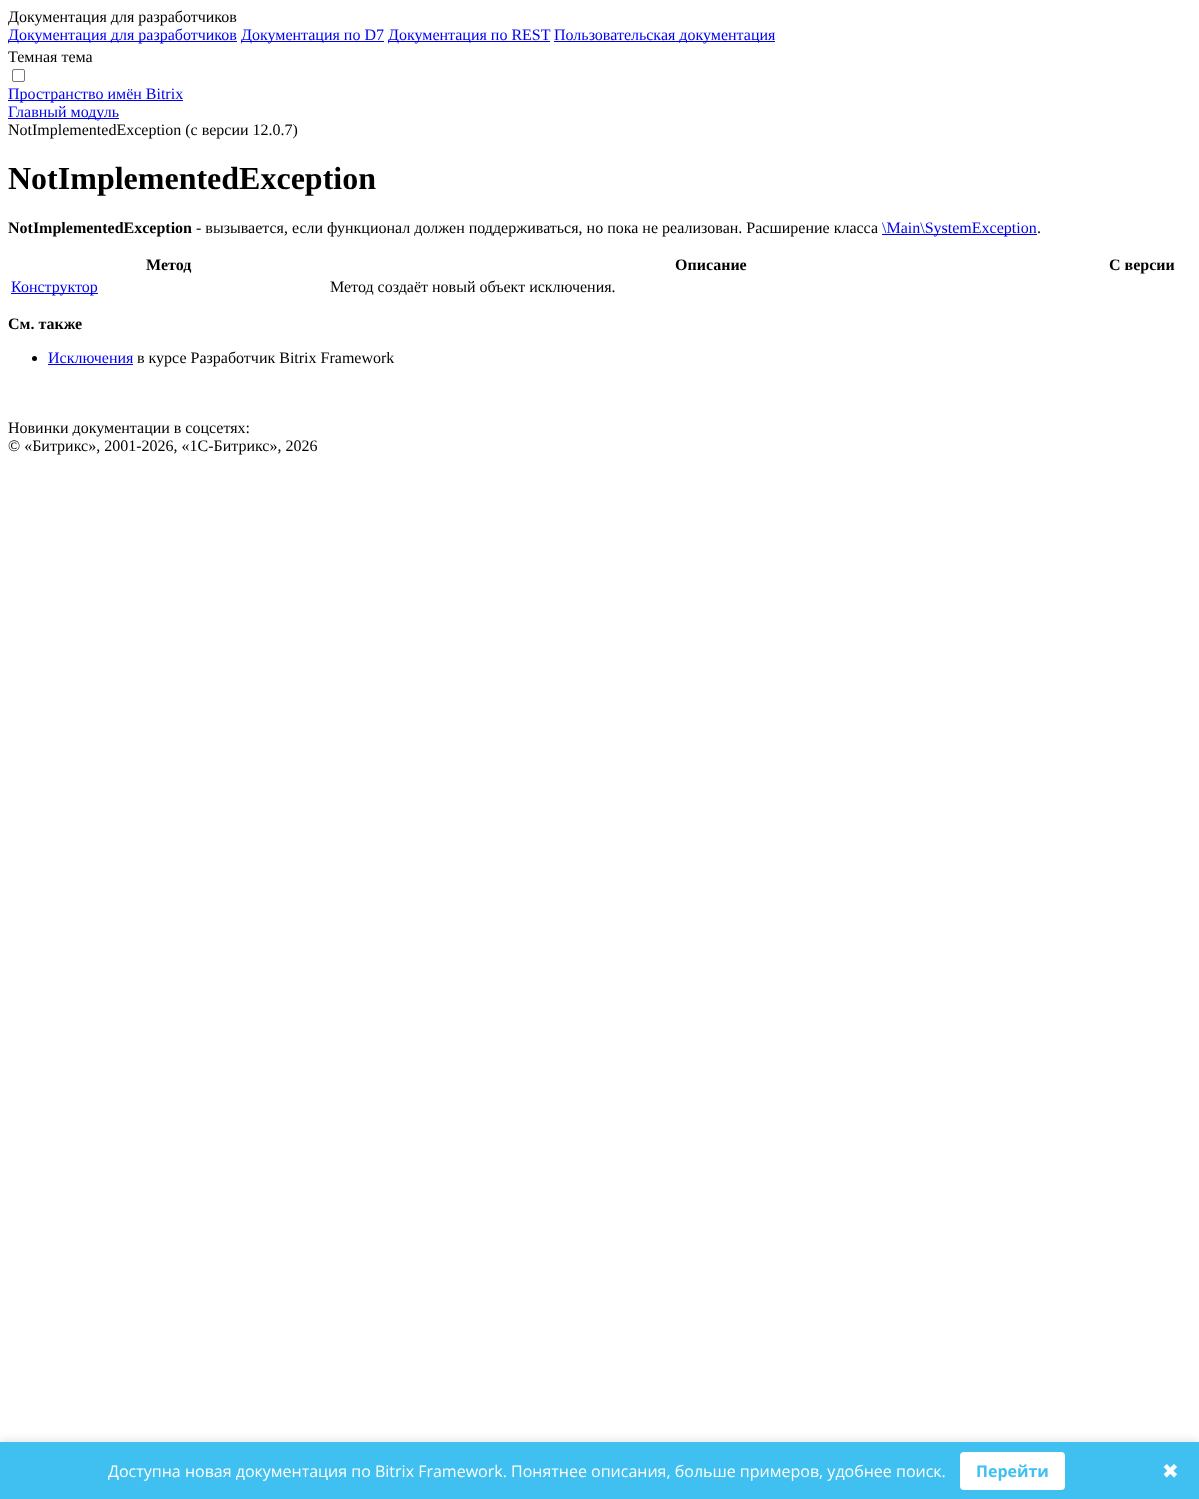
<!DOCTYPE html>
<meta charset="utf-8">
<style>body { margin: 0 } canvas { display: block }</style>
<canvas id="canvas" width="1199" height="1499"></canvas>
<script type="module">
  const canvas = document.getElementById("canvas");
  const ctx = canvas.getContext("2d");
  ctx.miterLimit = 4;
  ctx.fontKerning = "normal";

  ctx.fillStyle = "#ffffff";
  ctx.fillRect(0, 0, 1199, 1499);
  ctx.font = "16px Liberation Serif";
  ctx.fillStyle = "#000000";
  ctx.fillText("Документация для разработчиков", 8, 22);
  ctx.fillStyle = "#0000ee";
  ctx.fillRect(8, 41, 229, 1);
  ctx.fillText("Документация для разработчиков", 8, 40);
  ctx.fillRect(241, 41, 143, 1);
  ctx.fillText("Документация по D7", 241, 40);
  ctx.fillRect(388, 41, 162, 1);
  ctx.fillText("Документация по REST", 388, 40);
  ctx.fillRect(554, 41, 221, 1);
  ctx.fillText("Пользовательская документация", 554, 40);
  ctx.fillStyle = "#000000";
  ctx.fillText("Темная тема", 8, 62);
  ctx.beginPath();
  ctx.roundRect(12.5, 69.5, 12, 12, 1.5);
  ctx.strokeStyle = "#767676";
  ctx.stroke();
  ctx.fillStyle = "#0000ee";
  ctx.fillRect(8, 100, 175, 1);
  ctx.fillText("Пространство имён Bitrix", 8, 99);
  ctx.fillRect(8, 118, 111, 1);
  ctx.fillText("Главный модуль", 8, 117);
  ctx.fillStyle = "#000000";
  ctx.fillText("NotImplementedException (с версии 12.0.7)", 8, 135);
  ctx.font = "bold 32px Liberation Serif";
  ctx.fillText("NotImplementedException", 8, 189);
  ctx.font = "bold 16px Liberation Serif";
  ctx.fillText("NotImplementedException", 8, 233);
  ctx.font = "16px Liberation Serif";
  ctx.fillText("- вызывается, если функционал должен поддерживаться, но пока не реализован. Расширение класса", 196, 233);
  ctx.fillStyle = "#0000ee";
  ctx.fillRect(882, 234, 155, 1);
  ctx.fillText("\\Main\\SystemException", 882, 233);
  ctx.fillStyle = "#000000";
  ctx.fillText(".", 1037, 233);
  ctx.font = "bold 16px Liberation Serif";
  ctx.fillText("Метод", 146, 270);
  ctx.fillText("Описание", 675, 270);
  ctx.fillText("С версии", 1109, 270);
  ctx.fillStyle = "#0000ee";
  ctx.fillRect(11, 293, 87, 1);
  ctx.font = "16px Liberation Serif";
  ctx.fillText("Конструктор", 11, 292);
  ctx.fillStyle = "#000000";
  ctx.fillText("Метод создаёт новый объект исключения.", 330, 292);
  ctx.font = "bold 16px Liberation Serif";
  ctx.fillText("См. также", 8, 329);
  ctx.beginPath();
  ctx.arc(34.5, 358.5, 2.5, 0, Math.PI * 2);
  ctx.fill();
  ctx.font = "16px Liberation Serif";
  ctx.fillStyle = "#0000ee";
  ctx.fillText("Исключения", 48, 363);
  ctx.fillRect(48, 364, 85, 1);
  ctx.fillStyle = "#000000";
  ctx.fillText("в курсе Разработчик Bitrix Framework", 137, 363);
  ctx.fillText("Новинки документации в соцсетях:", 8, 433);
  ctx.fillText("© «Битрикс», 2001-2026, «1С-Битрикс», 2026", 8, 451);
  ctx.fillStyle = "rgba(0, 0, 0, 0.1)";
  ctx.filter = "blur(4px)";
  ctx.beginPath();
  ctx.rect(0, 1440, 1199, 57);
  ctx.fill();
  ctx.filter = "none";
  ctx.fillStyle = "#3fc0f0";
  ctx.fillRect(0, 1442, 1199, 57);
  ctx.font = "16px Open Sans";
  ctx.fillStyle = "#ffffff";
  ctx.fillText("Доступна новая документация по Bitrix Framework. Понятнее описания, больше примеров, удобнее поиск.", 108, 1477);
  ctx.beginPath();
  ctx.roundRect(960, 1452, 105, 38, 4);
  ctx.fill();
  ctx.font = "bold 16px Open Sans";
  ctx.fillStyle = "#3fc0f0";
  ctx.fillText("Перейти", 976, 1477);
  ctx.font = "20px DejaVu Sans";
  ctx.fillStyle = "#ffffff";
  ctx.fillText("✖", 1162, 1478);
</script>
